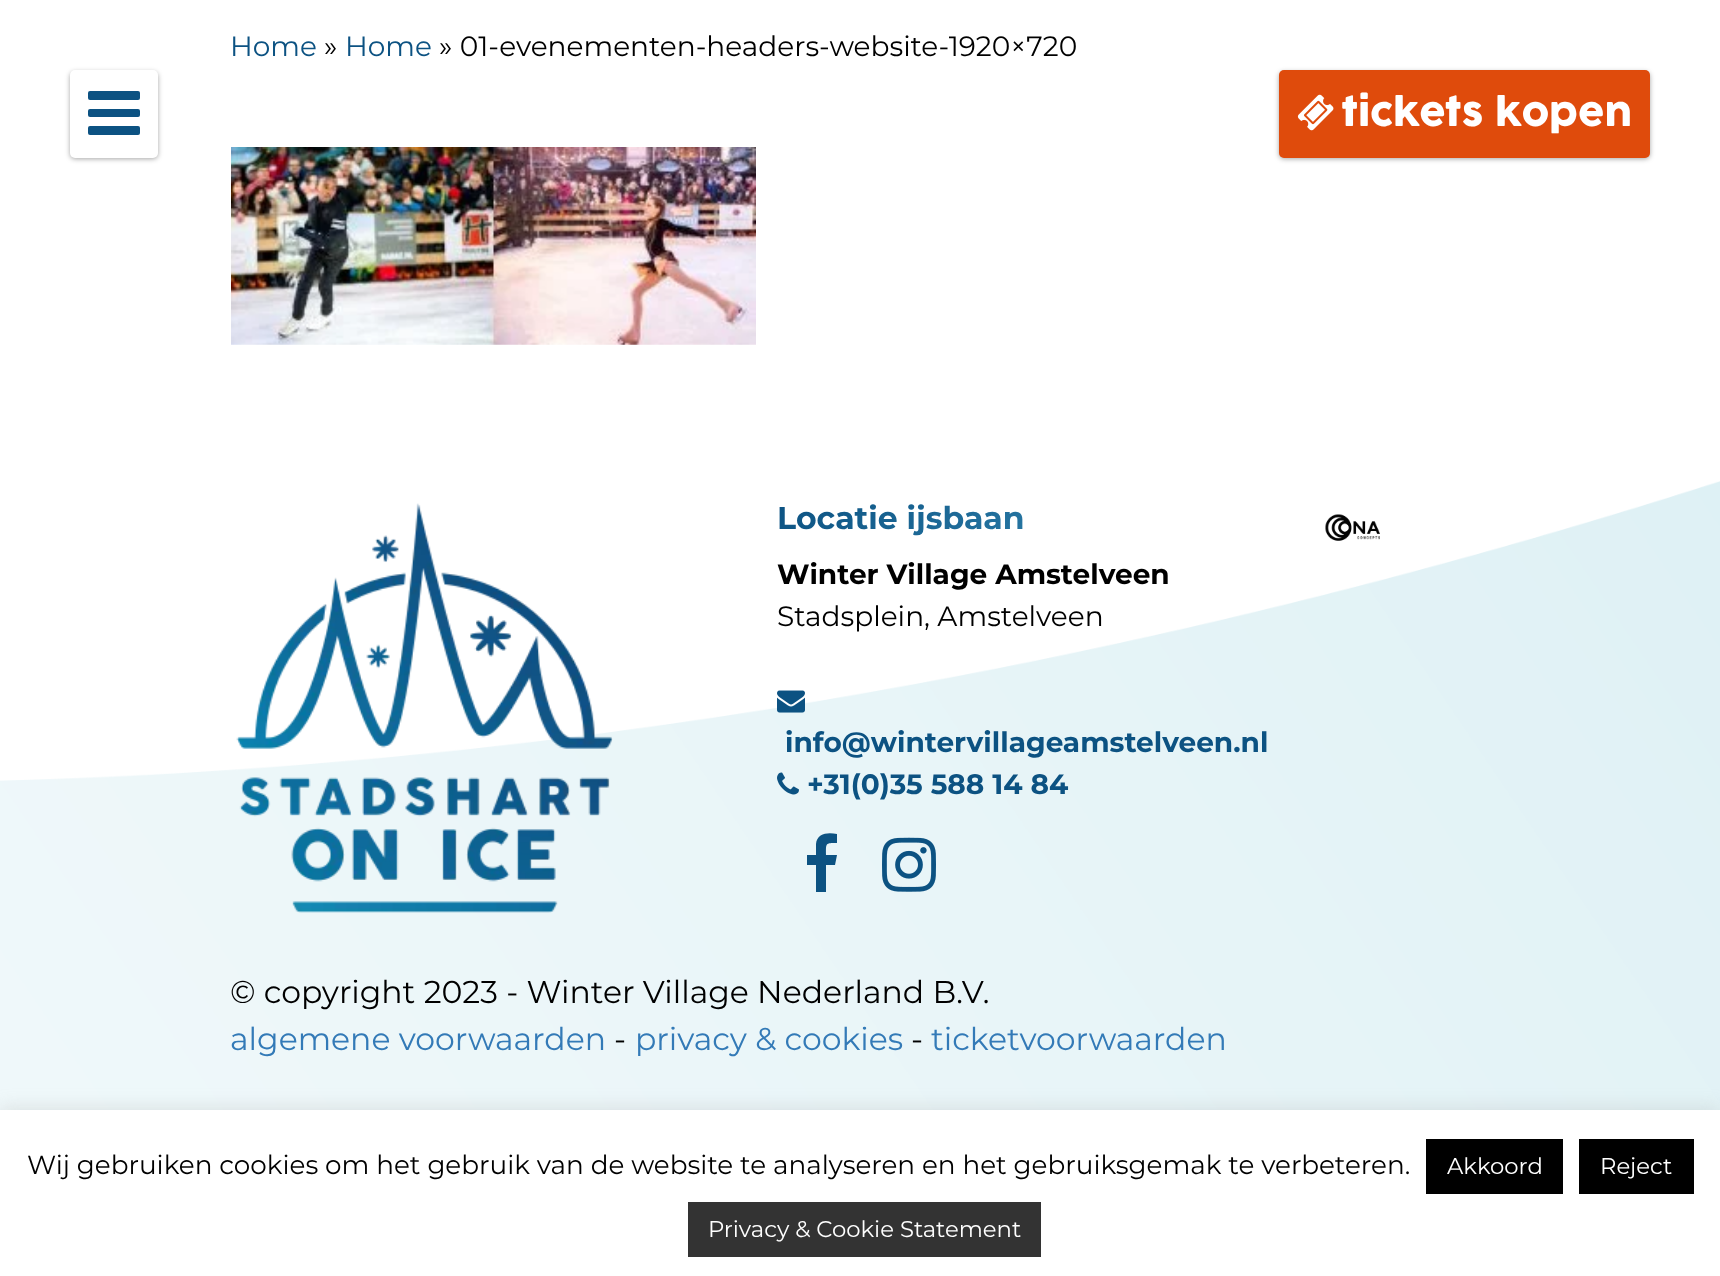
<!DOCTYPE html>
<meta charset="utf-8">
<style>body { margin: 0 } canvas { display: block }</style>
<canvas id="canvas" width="1720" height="1276"></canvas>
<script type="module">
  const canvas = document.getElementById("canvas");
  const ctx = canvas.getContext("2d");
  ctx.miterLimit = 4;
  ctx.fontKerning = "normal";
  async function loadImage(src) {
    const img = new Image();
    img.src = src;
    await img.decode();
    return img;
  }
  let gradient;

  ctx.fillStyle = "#ffffff";
  ctx.fillRect(0, 0, 1720, 1276);
  ctx.font = "28px Montserrat";
  ctx.fillStyle = "#0c5282";
  ctx.fillText("Home", 230, 56);
  ctx.fillStyle = "#000000";
  ctx.fillText("»", 324, 56);
  ctx.fillStyle = "#0c5282";
  ctx.fillText("Home", 345, 56);
  ctx.fillStyle = "#000000";
  ctx.fillText("» 01-evenementen-headers-website-1920×720", 439, 56);
  ctx.fillStyle = "rgba(0, 0, 0, 0.35)";
  ctx.filter = "blur(2.5px)";
  ctx.beginPath();
  ctx.roundRect(70, 72, 88, 87, 5);
  ctx.fill();
  ctx.filter = "none";
  ctx.fillStyle = "#ffffff";
  ctx.beginPath();
  ctx.roundRect(70, 70, 88, 88, 5);
  ctx.fill();
  ctx.fillStyle = "#0c5282";
  ctx.beginPath();
  ctx.roundRect(88, 91, 52, 9, 2);
  ctx.fill();
  ctx.beginPath();
  ctx.roundRect(88, 109, 52, 8, 2);
  ctx.fill();
  ctx.beginPath();
  ctx.roundRect(88, 126, 52, 9, 2);
  ctx.fill();
  ctx.fillStyle = "rgba(0, 0, 0, 0.35)";
  ctx.filter = "blur(2.5px)";
  ctx.beginPath();
  ctx.roundRect(1279, 72, 371, 87, 5);
  ctx.fill();
  ctx.filter = "none";
  ctx.fillStyle = "#df4b0c";
  ctx.beginPath();
  ctx.roundRect(1279, 70, 371, 88, 5);
  ctx.fill();
  ctx.drawImage(await loadImage("img1.png"), 1297, 94, 37, 37);
  ctx.font = "37.75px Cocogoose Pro";
  ctx.fillStyle = "#ffffff";
  ctx.fillText("tickets kopen", 1342, 126);
  ctx.drawImage(await loadImage("img2.png"), 231, 147, 525, 198);
  ctx.drawImage(await loadImage("img3.png"), 0, 481, 1720, 629);
  ctx.drawImage(await loadImage("img4.png"), 236, 503, 377, 410);
  ctx.font = "bold 31.5px Montserrat";
  gradient = ctx.createLinearGradient(1156, 652, 892, 387);
  gradient.addColorStop(0, "#3d94bd");
  gradient.addColorStop(1, "#0c5282");
  ctx.fillStyle = gradient;
  ctx.fillText("Locatie ijsbaan", 777, 529);
  ctx.font = "bold 28px Montserrat";
  ctx.fillStyle = "#000000";
  ctx.fillText("Winter Village Amstelveen", 777, 584);
  ctx.font = "28px Montserrat";
  ctx.fillText("Stadsplein, Amstelveen", 777, 626);
  ctx.drawImage(await loadImage("img5.png"), 777, 690, 28, 23);
  ctx.font = "bold 28px Montserrat";
  ctx.fillStyle = "#0c5282";
  ctx.fillText("info@wintervillageamstelveen.nl", 785, 752);
  ctx.drawImage(await loadImage("img6.png"), 777, 772, 22, 23);
  ctx.fillText("+31(0)35 588 14 84", 807, 794);
  ctx.beginPath();
  ctx.moveTo(837, 834);
  ctx.lineTo(837, 843);
  ctx.bezierCurveTo(825, 843, 826, 843, 826, 855);
  ctx.lineTo(837, 855);
  ctx.lineTo(835, 865);
  ctx.lineTo(826, 865);
  ctx.lineTo(826, 892);
  ctx.lineTo(816, 892);
  ctx.lineTo(816, 865);
  ctx.lineTo(807, 865);
  ctx.lineTo(807, 855);
  ctx.lineTo(816, 855);
  ctx.lineTo(816, 844);
  ctx.bezierCurveTo(817, 833, 828, 832, 837, 834);
  ctx.closePath();
  ctx.fill();
  ctx.drawImage(await loadImage("img7.png"), 882, 837, 54, 55);
  ctx.drawImage(await loadImage("img8.png"), 1325, 514, 55, 27);
  ctx.font = "31.5px Montserrat";
  ctx.fillStyle = "#000000";
  ctx.fillText("© copyright 2023 - Winter Village Nederland B.V.", 230, 1003);
  ctx.fillStyle = "#337ab7";
  ctx.fillText("algemene voorwaarden", 230, 1050);
  ctx.fillStyle = "#000000";
  ctx.fillText("-", 614, 1050);
  ctx.fillStyle = "#337ab7";
  ctx.fillText("privacy & cookies", 635, 1050);
  ctx.fillStyle = "#000000";
  ctx.fillText("-", 911, 1050);
  ctx.fillStyle = "#337ab7";
  ctx.fillText("ticketvoorwaarden", 931, 1050);
  ctx.fillStyle = "rgba(172, 171, 171, 0.3)";
  ctx.filter = "blur(9px)";
  ctx.beginPath();
  ctx.rect(0, 1108, 1720, 168);
  ctx.fill();
  ctx.filter = "none";
  ctx.fillStyle = "#ffffff";
  ctx.fillRect(0, 1110, 1720, 166);
  ctx.font = "26.25px Montserrat";
  ctx.fillStyle = "#000000";
  ctx.fillText("Wij gebruiken cookies om het gebruik van de website te analyseren en het gebruiksgemak te verbeteren.", 27, 1174);
  ctx.fillRect(1426, 1139, 137, 55);
  ctx.font = "22.75px Montserrat";
  ctx.fillStyle = "#ffffff";
  ctx.fillText("Akkoord", 1447, 1174);
  ctx.fillStyle = "#000000";
  ctx.fillRect(1579, 1139, 115, 55);
  ctx.fillStyle = "#ffffff";
  ctx.fillText("Reject", 1600, 1174);
  ctx.fillStyle = "#333333";
  ctx.fillRect(688, 1202, 353, 55);
  ctx.fillStyle = "#ffffff";
  ctx.fillText("Privacy & Cookie Statement", 708, 1237);
</script>
